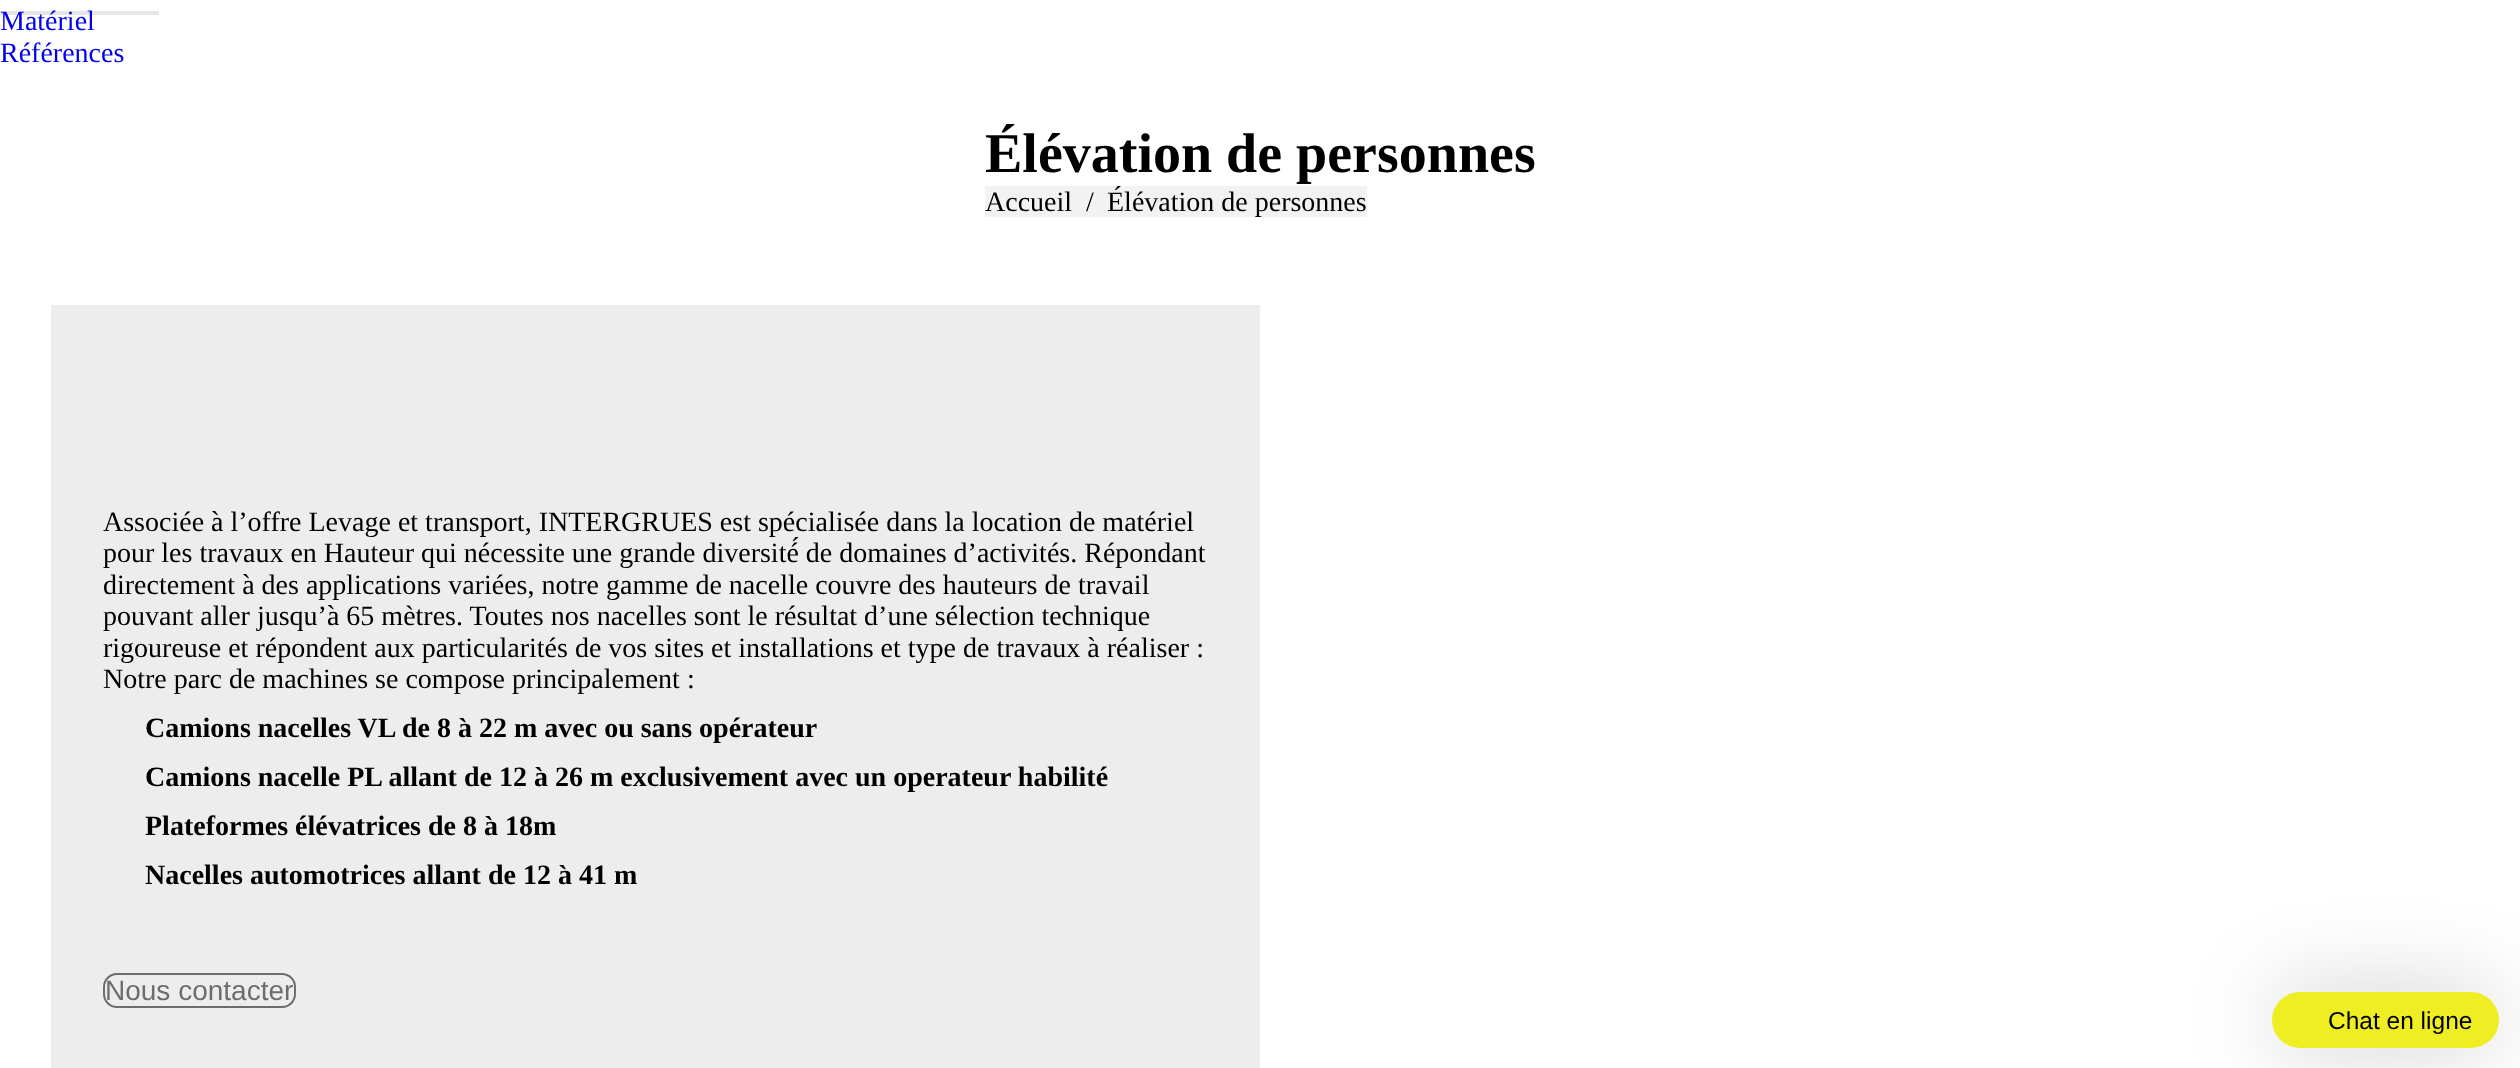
<!DOCTYPE html>
<meta charset="utf-8">
<style>body { margin: 0 } canvas { display: block }</style>
<canvas id="canvas" width="2520" height="1068"></canvas>
<script type="module">
  const canvas = document.getElementById("canvas");
  const ctx = canvas.getContext("2d");
  ctx.miterLimit = 4;
  ctx.fontKerning = "normal";

  ctx.fillStyle = "#ffffff";
  ctx.fillRect(0, 0, 2520, 1068);
  ctx.fillStyle = "#e6e6e6";
  ctx.fillRect(0, 11, 159, 4);
  ctx.font = "28px Liberation Serif";
  ctx.fillStyle = "#0000ee";
  ctx.fillText("Matériel", 0, 30);
  ctx.fillText("Références", 0, 62);
  ctx.font = "bold 56px Liberation Serif";
  ctx.fillStyle = "#000000";
  ctx.fillText("Élévation de personnes", 985, 172);
  ctx.fillStyle = "#f2f2f2";
  ctx.fillRect(985, 186, 382, 31);
  ctx.font = "28px Liberation Serif";
  ctx.fillStyle = "#000000";
  ctx.fillText("Accueil", 985, 211);
  ctx.fillText("/", 1086, 211);
  ctx.fillText("Élévation de personnes", 1107, 211);
  ctx.fillStyle = "#ededed";
  ctx.fillRect(51, 305, 1209, 763);
  ctx.fillStyle = "#000000";
  ctx.fillText("Associée à l’offre Levage et transport, INTERGRUES est spécialisée dans la location de matériel", 103, 531);
  ctx.fillText("pour les travaux en Hauteur qui nécessite une grande diversité́ de domaines d’activités. Répondant", 103, 562);
  ctx.fillText("directement à des applications variées, notre gamme de nacelle couvre des hauteurs de travail", 103, 594);
  ctx.fillText("pouvant aller jusqu’à 65 mètres. Toutes nos nacelles sont le résultat d’une sélection technique", 103, 625);
  ctx.fillText("rigoureuse et répondent aux particularités de vos sites et installations et type de travaux à réaliser :", 103, 657);
  ctx.fillText("Notre parc de machines se compose principalement :", 103, 688);
  ctx.font = "bold 28px Liberation Serif";
  ctx.fillText("Camions nacelles VL de 8 à 22 m avec ou sans opérateur", 145, 737);
  ctx.fillText("Camions nacelle PL allant de 12 à 26 m exclusivement avec un operateur habilité", 145, 786);
  ctx.fillText("Plateformes élévatrices de 8 à 18m", 145, 835);
  ctx.fillText("Nacelles automotrices allant de 12 à 41 m", 145, 884);
  ctx.beginPath();
  ctx.roundRect(104, 974, 191, 33, 13);
  ctx.strokeStyle = "#6d6d6d";
  ctx.lineWidth = 2;
  ctx.stroke();
  ctx.font = "28px Liberation Sans";
  ctx.fillStyle = "#6d6d6d";
  ctx.fillText("Nous contacter", 105, 1000);
  ctx.fillStyle = "rgba(0, 0, 0, 0.2)";
  ctx.filter = "blur(44px)";
  ctx.beginPath();
  ctx.roundRect(2272, 992, 227, 56, 28);
  ctx.fill();
  ctx.filter = "none";
  ctx.fillStyle = "#eeee22";
  ctx.beginPath();
  ctx.roundRect(2272, 992, 227, 56, 28);
  ctx.fill();
  ctx.font = "24.5px Liberation Sans";
  ctx.fillStyle = "#000000";
  ctx.fillText("Chat en ligne", 2328, 1029);
</script>
